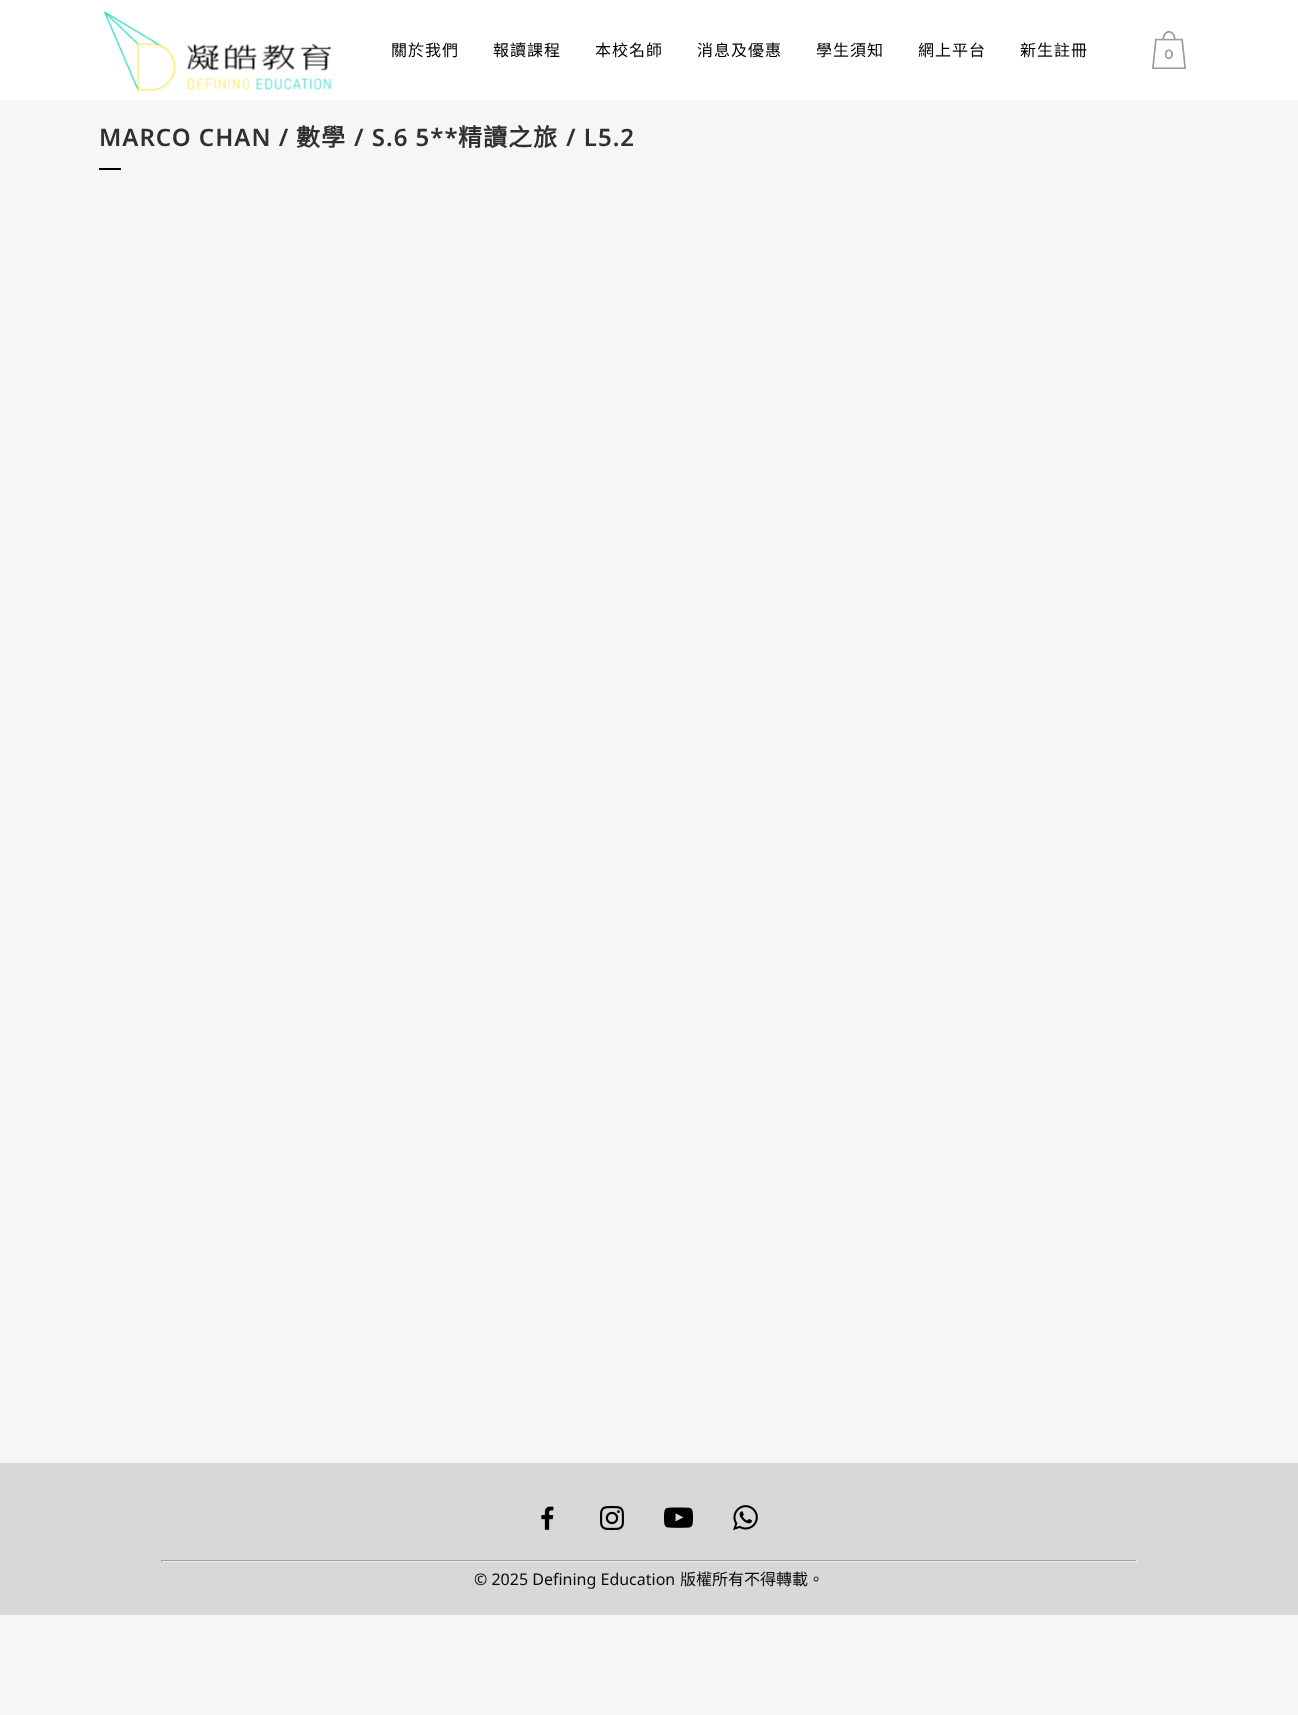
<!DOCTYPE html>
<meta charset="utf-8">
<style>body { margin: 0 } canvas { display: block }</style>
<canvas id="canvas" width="1298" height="1715"></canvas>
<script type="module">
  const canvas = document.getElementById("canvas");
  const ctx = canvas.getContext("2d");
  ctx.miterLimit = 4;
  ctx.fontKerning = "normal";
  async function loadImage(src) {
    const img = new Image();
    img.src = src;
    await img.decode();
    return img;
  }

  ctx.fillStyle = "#f6f6f6";
  ctx.fillRect(0, 0, 1298, 1715);
  ctx.fillStyle = "#ffffff";
  ctx.fillRect(0, 0, 1298, 100);
  ctx.drawImage(await loadImage("img1.png"), 103, 11, 229, 81);
  ctx.letterSpacing = "1px";
  ctx.font = "16px Noto Sans CJK HK";
  ctx.fillStyle = "#000000";
  ctx.fillText("關於我們", 391, 56);
  ctx.fillText("報讀課程", 493, 56);
  ctx.fillText("本校名師", 595, 56);
  ctx.fillText("消息及優惠", 697, 56);
  ctx.fillText("學生須知", 816, 56);
  ctx.fillText("網上平台", 918, 56);
  ctx.fillText("新生註冊", 1020, 56);
  ctx.drawImage(await loadImage("img2.png"), 1152, 31, 34, 38);
  ctx.letterSpacing = "0px";
  ctx.font = "600 16px Raleway";
  ctx.fillStyle = "#9d9d9d";
  ctx.fillText("0", 1164, 59);
  ctx.letterSpacing = "1px";
  ctx.font = "600 24px Noto Sans";
  ctx.fillStyle = "#303030";
  ctx.fillText("MARCO CHAN /", 99, 146);
  ctx.font = "bold 24px Noto Sans CJK HK";
  ctx.fillText("數學", 296, 146);
  ctx.font = "600 24px Noto Sans";
  ctx.fillText("/ S.6 5**", 354, 146);
  ctx.font = "bold 24px Noto Sans CJK HK";
  ctx.fillText("精讀之旅", 458, 146);
  ctx.font = "600 24px Noto Sans";
  ctx.fillText("/ L5.2", 566, 146);
  ctx.fillStyle = "#000000";
  ctx.fillRect(99, 168, 22, 2);
  ctx.fillStyle = "#d8d8d8";
  ctx.fillRect(0, 1463, 1298, 152);
  ctx.drawImage(await loadImage("img3.png"), 541, 1506, 13, 24);
  ctx.drawImage(await loadImage("img4.png"), 600, 1506, 24, 24);
  ctx.drawImage(await loadImage("img5.png"), 664, 1507, 29, 21);
  ctx.drawImage(await loadImage("img6.png"), 733, 1505, 25, 26);
  ctx.fillStyle = "#9f9f9f";
  ctx.fillRect(161, 1560, 976, 1);
  ctx.fillStyle = "#eeeeee";
  ctx.fillRect(1136, 1560, 1, 2);
  ctx.fillRect(161, 1561, 976, 1);
  ctx.fillStyle = "#9f9f9f";
  ctx.fillRect(161, 1560, 1, 2);
  ctx.letterSpacing = "0px";
  ctx.font = "16px Noto Sans";
  ctx.fillStyle = "#0a0a0a";
  ctx.fillText("© 2025 Defining Education", 474, 1585);
  ctx.font = "16px Noto Sans CJK HK";
  ctx.fillText("版權所有不得轉載。", 680, 1585);
</script>
